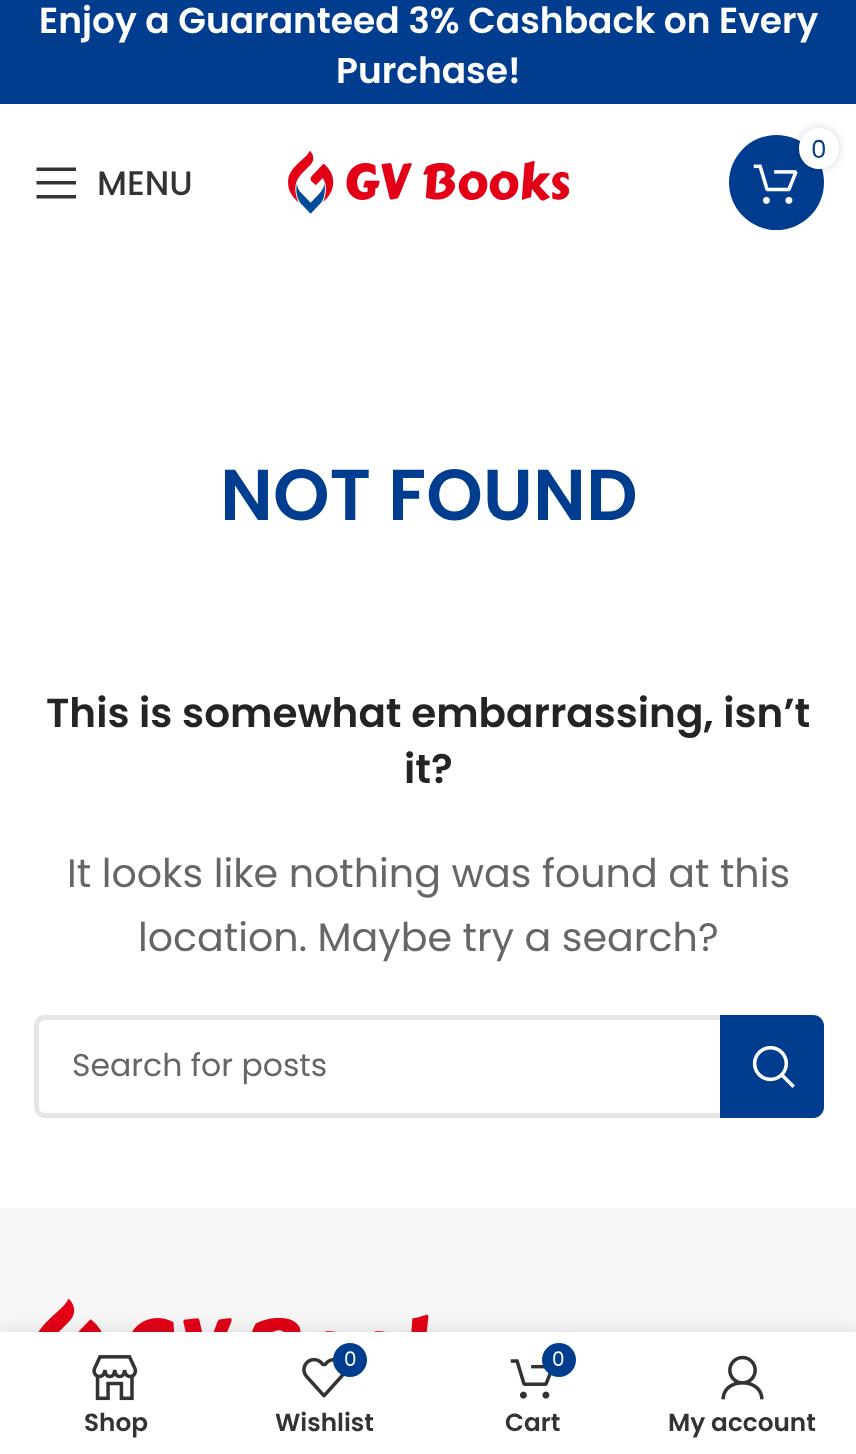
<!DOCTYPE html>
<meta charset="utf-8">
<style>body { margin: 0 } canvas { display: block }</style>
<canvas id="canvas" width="856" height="1454"></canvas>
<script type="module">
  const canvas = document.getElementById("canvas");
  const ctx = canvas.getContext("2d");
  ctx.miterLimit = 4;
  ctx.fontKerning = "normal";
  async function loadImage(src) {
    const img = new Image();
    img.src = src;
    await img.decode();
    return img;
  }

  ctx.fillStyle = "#ffffff";
  ctx.fillRect(0, 0, 856, 1454);
  ctx.fillStyle = "#003d8f";
  ctx.fillRect(0, 0, 856, 104);
  ctx.font = "600 36px Poppins";
  ctx.fillStyle = "#ffffff";
  ctx.fillText("Enjoy a Guaranteed 3% Cashback on Every", 39, 33);
  ctx.fillText("Purchase!", 336, 83);
  ctx.fillStyle = "#003d8f";
  ctx.beginPath();
  ctx.arc(776.5, 182.5, 47.5, 0, Math.PI * 2);
  ctx.fill();
  ctx.drawImage(await loadImage("img1.png"), 753, 164, 45, 40);
  ctx.fillStyle = "rgba(0, 0, 0, 0.17)";
  ctx.filter = "blur(4.5px)";
  ctx.beginPath();
  ctx.roundRect(799, 128, 40, 41, 20);
  ctx.fill();
  ctx.filter = "none";
  ctx.fillStyle = "#ffffff";
  ctx.beginPath();
  ctx.roundRect(799, 128, 40, 41, 20);
  ctx.fill();
  ctx.font = "24.75px Poppins";
  ctx.fillStyle = "#003d8f";
  ctx.fillText("0", 811, 158);
  ctx.fillStyle = "#333333";
  ctx.beginPath();
  ctx.moveTo(36.5, 171);
  ctx.lineTo(76, 171);
  ctx.lineTo(76, 167.5);
  ctx.lineTo(36.5, 167.5);
  ctx.closePath();
  ctx.moveTo(36.5, 184.5);
  ctx.lineTo(76, 184.5);
  ctx.lineTo(76, 181);
  ctx.lineTo(36.5, 181);
  ctx.closePath();
  ctx.moveTo(36.5, 198.5);
  ctx.lineTo(76, 198.5);
  ctx.lineTo(76, 195);
  ctx.lineTo(36.5, 195);
  ctx.closePath();
  ctx.fill();
  ctx.font = "500 34px Poppins";
  ctx.fillText("MENU", 97, 195);
  ctx.drawImage(await loadImage("img2.png"), 288, 151, 281, 63);
  ctx.font = "600 72px Poppins";
  ctx.fillStyle = "#003d8f";
  ctx.fillText("NOT FOUND", 220, 520);
  ctx.font = "600 40.5px Poppins";
  ctx.fillStyle = "#242424";
  ctx.fillText("This is somewhat embarrassing, isn’t", 46, 727);
  ctx.fillText("it?", 404, 783);
  ctx.font = "39.6px Poppins";
  ctx.fillStyle = "#666666";
  ctx.fillText("It looks like nothing was found at this", 67, 887);
  ctx.fillText("location. Maybe try a search?", 138, 951);
  ctx.beginPath();
  ctx.roundRect(36.5, 1017.5, 785, 98, 8.5);
  ctx.strokeStyle = "#e6e6e6";
  ctx.lineWidth = 5;
  ctx.stroke();
  ctx.font = "31.5px Poppins";
  ctx.fillText("Search for posts", 72, 1076);
  ctx.fillStyle = "#003d8f";
  ctx.beginPath();
  ctx.roundRect(720, 1015, 104, 103, [0, 11, 11, 0]);
  ctx.fill();
  ctx.drawImage(await loadImage("img3.png"), 752, 1046, 43, 42);
  ctx.fillStyle = "#f7f7f7";
  ctx.fillRect(0, 1208, 856, 124);
  ctx.drawImage(await loadImage("img4.png"), 38, 1298, 391, 34);
  ctx.fillStyle = "rgba(0, 0, 0, 0.12)";
  ctx.filter = "blur(10px)";
  ctx.beginPath();
  ctx.rect(0, 1332, 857, 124);
  ctx.fill();
  ctx.filter = "none";
  ctx.fillStyle = "#ffffff";
  ctx.fillRect(0, 1332, 856, 122);
  ctx.drawImage(await loadImage("img5.png"), 92, 1355, 46, 46);
  ctx.font = "600 24.75px Poppins";
  ctx.fillStyle = "#333333";
  ctx.fillText("Shop", 84, 1431);
  ctx.drawImage(await loadImage("img6.png"), 302, 1357, 43, 41);
  ctx.fillStyle = "#003d8f";
  ctx.beginPath();
  ctx.arc(350, 1360, 17, 0, Math.PI * 2);
  ctx.fill();
  ctx.font = "20px Poppins";
  ctx.fillStyle = "#ffffff";
  ctx.fillText("0", 344, 1366);
  ctx.font = "600 24.75px Poppins";
  ctx.fillStyle = "#333333";
  ctx.fillText("Wishlist", 275, 1431);
  ctx.drawImage(await loadImage("img7.png"), 510, 1359, 42, 40);
  ctx.fillStyle = "#003d8f";
  ctx.beginPath();
  ctx.arc(559, 1360, 17, 0, Math.PI * 2);
  ctx.fill();
  ctx.font = "20px Poppins";
  ctx.fillStyle = "#ffffff";
  ctx.fillText("0", 552, 1366);
  ctx.font = "600 24.75px Poppins";
  ctx.fillStyle = "#333333";
  ctx.fillText("Cart", 505, 1431);
  ctx.drawImage(await loadImage("img8.png"), 721, 1355, 43, 45);
  ctx.fillText("My account", 668, 1431);
</script>
